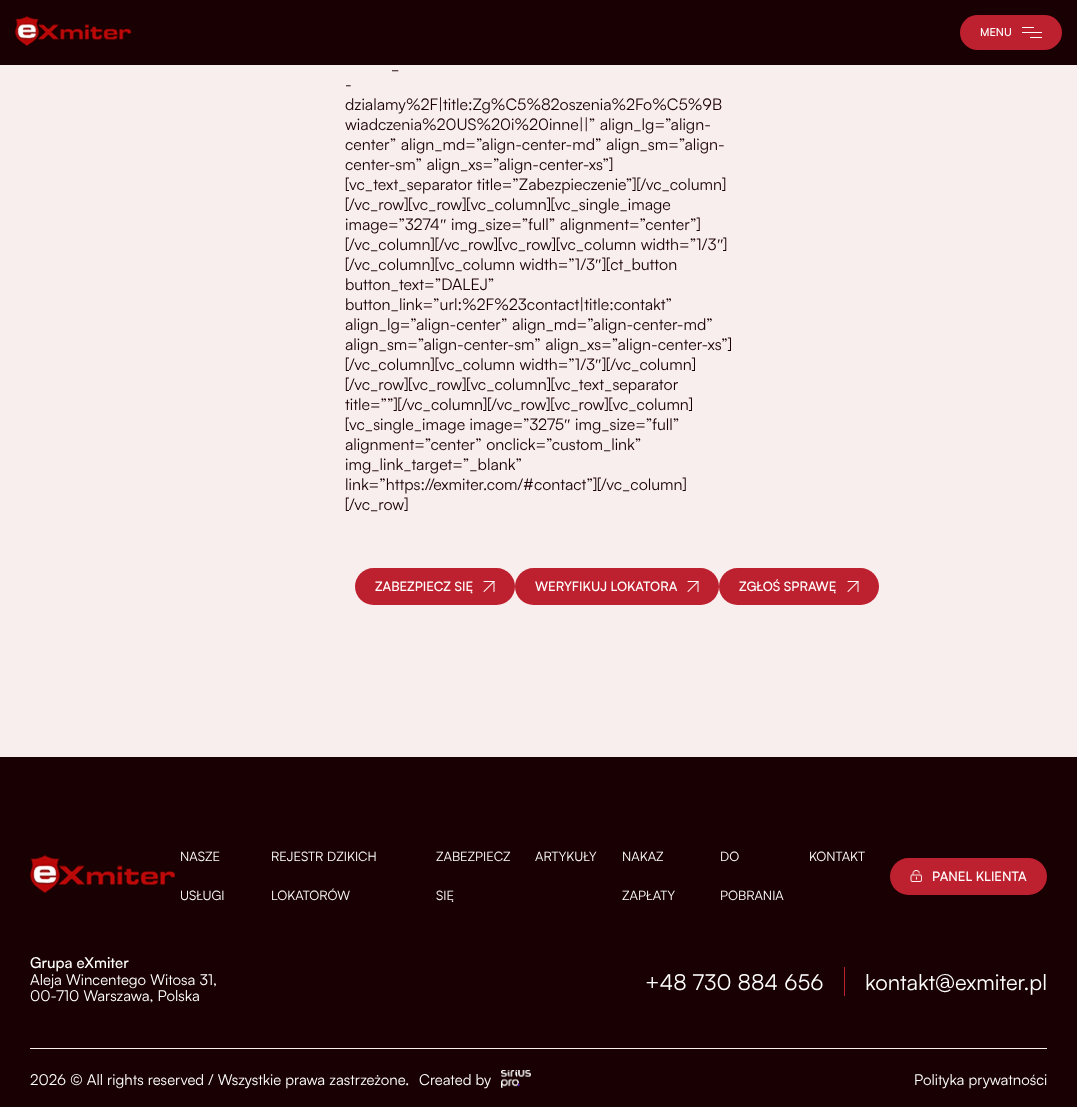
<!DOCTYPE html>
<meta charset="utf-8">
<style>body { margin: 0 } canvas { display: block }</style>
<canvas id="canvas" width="1077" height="1107"></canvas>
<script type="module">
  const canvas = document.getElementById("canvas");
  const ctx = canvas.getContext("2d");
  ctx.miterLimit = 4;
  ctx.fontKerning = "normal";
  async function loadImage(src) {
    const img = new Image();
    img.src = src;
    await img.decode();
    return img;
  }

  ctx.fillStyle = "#190002";
  ctx.fillRect(0, 0, 1077, 1107);
  ctx.drawImage(await loadImage("img1.png"), 15, 16, 117, 30);
  ctx.fillStyle = "#bd202e";
  ctx.beginPath();
  ctx.roundRect(960, 15, 102, 35, 17.5);
  ctx.fill();
  ctx.font = "500 11px Satoshi";
  ctx.fillStyle = "#ffffff";
  ctx.fillText("MENU", 980, 36);
  ctx.fillRect(1022, 27, 12, 1);
  ctx.fillRect(1022, 32, 20, 1);
  ctx.fillRect(1030, 37, 12, 1);
  ctx.fillStyle = "#f9eeee";
  ctx.fillRect(0, 65, 1077, 692);
  ctx.font = "16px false";
  ctx.fillStyle = "#190002";
  ctx.fillText("_", 391, 70);
  ctx.fillText("-", 345, 90);
  ctx.fillText("dzialamy%2F|title:Zg%C5%82oszenia%2Fo%C5%9B", 345, 110);
  ctx.fillText("wiadczenia%20US%20i%20inne||” align_lg=”align-", 345, 130);
  ctx.fillText("center” align_md=”align-center-md” align_sm=”align-", 345, 150);
  ctx.fillText("center-sm” align_xs=”align-center-xs”]", 345, 170);
  ctx.fillText("[vc_text_separator title=”Zabezpieczenie”][/vc_column]", 345, 190);
  ctx.fillText("[/vc_row][vc_row][vc_column][vc_single_image", 345, 210);
  ctx.fillText("image=”3274", 345, 230);
  ctx.font = "16px Liberation Serif";
  ctx.fillText("″", 440, 230);
  ctx.font = "16px false";
  ctx.fillText("img_size=”full” alignment=”center”]", 451, 230);
  ctx.fillText("[/vc_column][/vc_row][vc_row][vc_column width=”1/3", 345, 250);
  ctx.font = "16px Liberation Serif";
  ctx.fillText("″", 717, 250);
  ctx.font = "16px false";
  ctx.fillText("]", 723, 250);
  ctx.fillText("[/vc_column][vc_column width=”1/3", 345, 270);
  ctx.font = "16px Liberation Serif";
  ctx.fillText("″", 595, 270);
  ctx.font = "16px false";
  ctx.fillText("][ct_button", 602, 270);
  ctx.fillText("button_text=”DALEJ”", 345, 290);
  ctx.fillText("button_link=”url:%2F%23contact|title:contakt”", 345, 310);
  ctx.fillText("align_lg=”align-center” align_md=”align-center-md”", 345, 330);
  ctx.fillText("align_sm=”align-center-sm” align_xs=”align-center-xs”]", 345, 350);
  ctx.fillText("[/vc_column][vc_column width=”1/3", 345, 370);
  ctx.font = "16px Liberation Serif";
  ctx.fillText("″", 595, 370);
  ctx.font = "16px false";
  ctx.fillText("][/vc_column]", 602, 370);
  ctx.fillText("[/vc_row][vc_row][vc_column][vc_text_separator", 345, 390);
  ctx.fillText("title=””][/vc_column][/vc_row][vc_row][vc_column]", 345, 410);
  ctx.fillText("[vc_single_image image=”3275", 345, 430);
  ctx.font = "16px Liberation Serif";
  ctx.fillText("″", 564, 430);
  ctx.font = "16px false";
  ctx.fillText("img_size=”full”", 575, 430);
  ctx.fillText("alignment=”center” onclick=”custom_link”", 345, 450);
  ctx.fillText("img_link_target=”_blank”", 345, 470);
  ctx.fillText("link=”https://exmiter.com/#contact”][/vc_column]", 345, 490);
  ctx.fillText("[/vc_row]", 345, 510);
  ctx.fillStyle = "#bd202e";
  ctx.beginPath();
  ctx.roundRect(355, 568, 160, 37, 18.5);
  ctx.fill();
  ctx.font = "500 13px Satoshi";
  ctx.fillStyle = "#ffffff";
  ctx.fillText("ZABEZPIECZ SIĘ", 375, 591);
  ctx.drawImage(await loadImage("img2.png"), 483, 581, 12, 11);
  ctx.fillStyle = "#bd202e";
  ctx.beginPath();
  ctx.roundRect(515, 568, 204, 37, 18.5);
  ctx.fill();
  ctx.fillStyle = "#ffffff";
  ctx.fillText("WERYFIKUJ LOKATORA", 535, 591);
  ctx.drawImage(await loadImage("img2.png"), 687, 581, 12, 11);
  ctx.fillStyle = "#bd202e";
  ctx.beginPath();
  ctx.roundRect(719, 568, 160, 37, 18.5);
  ctx.fill();
  ctx.fillStyle = "#ffffff";
  ctx.fillText("ZGŁOŚ SPRAWĘ", 739, 591);
  ctx.drawImage(await loadImage("img2.png"), 847, 581, 12, 11);
  ctx.drawImage(await loadImage("img3.png"), 30, 855, 145, 38);
  ctx.font = "13px false";
  ctx.fillText("NASZE", 180, 861);
  ctx.fillText("USŁUGI", 180, 900);
  ctx.fillText("REJESTR DZIKICH", 271, 861);
  ctx.fillText("LOKATORÓW", 271, 900);
  ctx.fillText("ZABEZPIECZ", 436, 861);
  ctx.fillText("SIĘ", 436, 900);
  ctx.fillText("ARTYKUŁY", 535, 861);
  ctx.fillText("NAKAZ", 622, 861);
  ctx.fillText("ZAPŁATY", 622, 900);
  ctx.fillText("DO", 720, 861);
  ctx.fillText("POBRANIA", 720, 900);
  ctx.fillText("KONTAKT", 809, 861);
  ctx.fillStyle = "#bd202e";
  ctx.beginPath();
  ctx.roundRect(890, 858, 157, 37, 18.5);
  ctx.fill();
  ctx.drawImage(await loadImage("img4.png"), 910, 870, 12, 12);
  ctx.font = "500 13px Satoshi";
  ctx.fillStyle = "#ffffff";
  ctx.fillText("PANEL KLIENTA", 932, 881);
  ctx.font = "500 15px Satoshi";
  ctx.fillText("Grupa eXmiter", 30, 968);
  ctx.font = "15px false";
  ctx.fillText("Aleja Wincentego Witosa 31,", 30, 985);
  ctx.fillText("00-710 Warszawa, Polska", 30, 1001);
  ctx.fillStyle = "#bd202e";
  ctx.fillRect(844, 967, 1, 29);
  ctx.font = "22px false";
  ctx.fillStyle = "#ffffff";
  ctx.fillText("+48 730 884 656", 645, 990);
  ctx.fillText("kontakt@exmiter.pl", 865, 990);
  ctx.fillStyle = "#f9eeee";
  ctx.fillRect(30, 1048, 1017, 1);
  ctx.font = "15px false";
  ctx.fillStyle = "#ffffff";
  ctx.fillText("2026 © All rights reserved / Wszystkie prawa zastrzeżone.", 30, 1085);
  ctx.fillText("Created by", 419, 1085);
  ctx.drawImage(await loadImage("img5.png"), 501, 1070, 30, 18);
  ctx.fillText("Polityka prywatności", 914, 1085);
</script>
